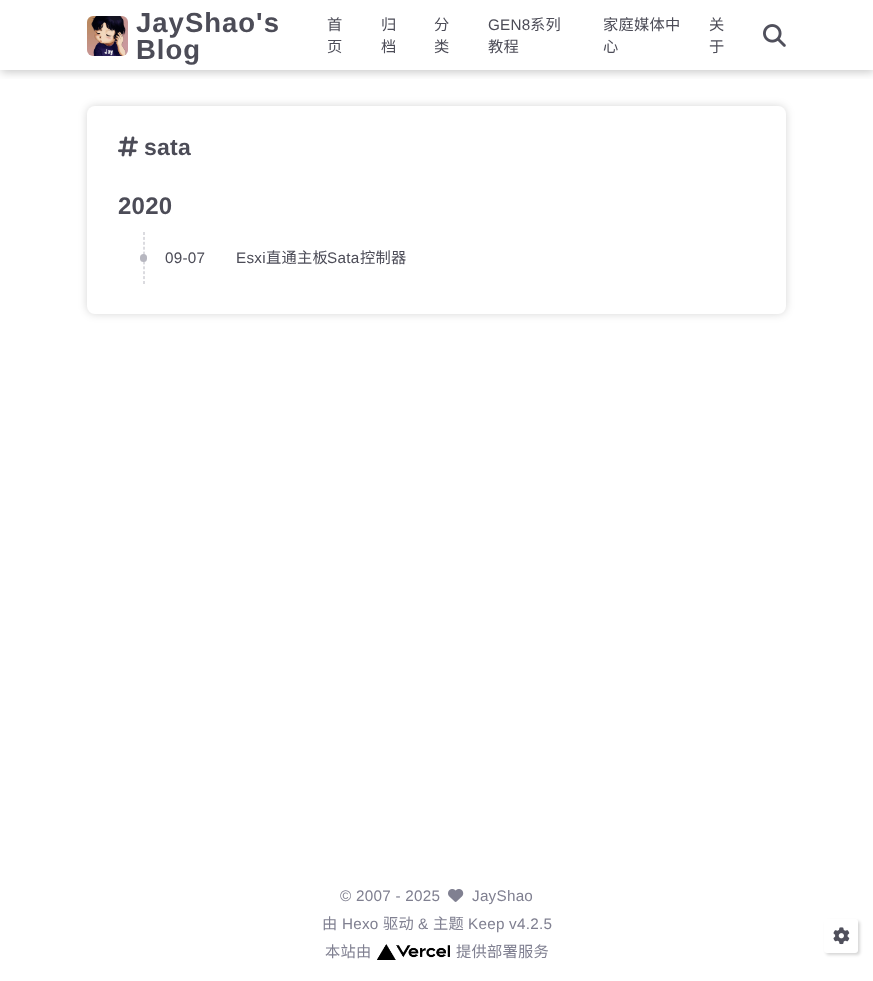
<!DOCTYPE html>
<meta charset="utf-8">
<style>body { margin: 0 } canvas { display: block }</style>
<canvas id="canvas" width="873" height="981"></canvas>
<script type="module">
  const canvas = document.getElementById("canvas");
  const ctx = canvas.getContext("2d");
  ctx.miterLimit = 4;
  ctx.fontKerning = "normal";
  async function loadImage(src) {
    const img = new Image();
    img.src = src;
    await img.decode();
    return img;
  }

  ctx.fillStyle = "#ffffff";
  ctx.fillRect(0, 0, 873, 981);
  ctx.save();
  ctx.beginPath();
  ctx.rect(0, 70, 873, 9);
  ctx.clip();
  ctx.fillStyle = "rgba(0, 0, 0, 0.22)";
  ctx.filter = "blur(5px)";
  ctx.beginPath();
  ctx.rect(1, 2, 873, 70);
  ctx.fill();
  ctx.filter = "none";
  ctx.restore();
  ctx.drawImage(await loadImage("img1.png"), 87, 16, 41, 40);
  ctx.letterSpacing = "1px";
  ctx.font = "bold 27.5px Liberation Sans";
  ctx.fillStyle = "#4c4c57";
  ctx.fillText("JayShao's", 136, 32);
  ctx.fillText("Blog", 136, 59);
  ctx.letterSpacing = "0.25px";
  ctx.font = "15.25px Noto Sans CJK SC";
  ctx.fillText("首", 327, 30);
  ctx.fillText("页", 327, 52);
  ctx.fillText("归", 381, 30);
  ctx.fillText("档", 381, 52);
  ctx.fillText("分", 434, 30);
  ctx.fillText("类", 434, 52);
  ctx.font = "15.25px Liberation Sans";
  ctx.fillText("GEN8", 488, 30);
  ctx.font = "15.25px Noto Sans CJK SC";
  ctx.fillText("系列", 530, 30);
  ctx.fillText("教程", 488, 52);
  ctx.fillText("家庭媒体中", 603, 30);
  ctx.fillText("心", 603, 52);
  ctx.fillText("关", 709, 30);
  ctx.fillText("于", 709, 52);
  ctx.drawImage(await loadImage("img2.png"), 763, 24, 23, 23);
  ctx.fillStyle = "rgba(0, 0, 0, 0.16)";
  ctx.filter = "blur(4px)";
  ctx.beginPath();
  ctx.roundRect(87, 106, 699, 208, 8);
  ctx.fill();
  ctx.filter = "none";
  ctx.fillStyle = "#ffffff";
  ctx.beginPath();
  ctx.roundRect(87, 106, 699, 208, 8);
  ctx.fill();
  ctx.drawImage(await loadImage("img3.png"), 118, 136, 20, 21);
  ctx.font = "bold 23px Liberation Sans";
  ctx.fillStyle = "#4c4c57";
  ctx.fillText("sata", 144, 155);
  ctx.font = "bold 24px Liberation Sans";
  ctx.fillText("2020", 118, 214);
  ctx.beginPath();
  ctx.moveTo(144, 232);
  ctx.lineTo(144, 284);
  ctx.strokeStyle = "#b7b7c0";
  ctx.setLineDash([3, 1.9]);
  ctx.stroke();
  ctx.fillStyle = "#b7b7c0";
  ctx.beginPath();
  ctx.roundRect(140, 254, 7, 8, 3.5);
  ctx.fill();
  ctx.font = "15.25px Liberation Sans";
  ctx.fillStyle = "#4c4c57";
  ctx.fillText("09-07", 165, 263);
  ctx.fillText("Esxi", 236, 263);
  ctx.font = "15.25px Noto Sans CJK SC";
  ctx.fillText("直通主板", 266, 263);
  ctx.font = "15.25px Liberation Sans";
  ctx.fillText("Sata", 327, 263);
  ctx.font = "15.25px Noto Sans CJK SC";
  ctx.fillText("控制器", 360, 263);
  ctx.font = "15.25px Liberation Sans";
  ctx.fillStyle = "#808091";
  ctx.fillText("© 2007 - 2025", 340, 901);
  ctx.drawImage(await loadImage("img4.png"), 448, 889, 16, 13);
  ctx.fillText("JayShao", 472, 901);
  ctx.font = "15.25px Noto Sans CJK SC";
  ctx.fillText("由", 322, 929);
  ctx.font = "15.25px Liberation Sans";
  ctx.fillText("Hexo", 342, 929);
  ctx.font = "15.25px Noto Sans CJK SC";
  ctx.fillText("驱动", 383, 929);
  ctx.font = "15.25px Liberation Sans";
  ctx.fillText("&", 418, 929);
  ctx.font = "15.25px Noto Sans CJK SC";
  ctx.fillText("主题", 433, 929);
  ctx.font = "15.25px Liberation Sans";
  ctx.fillText("Keep v4.2.5", 468, 929);
  ctx.font = "15.25px Noto Sans CJK SC";
  ctx.fillText("本站由", 325, 957);
  ctx.drawImage(await loadImage("img5.png"), 377, 944, 73, 16);
  ctx.fillText("提供部署服务", 456, 957);
  ctx.fillStyle = "rgba(0, 0, 0, 0.16)";
  ctx.filter = "blur(1.5px)";
  ctx.beginPath();
  ctx.roundRect(826, 921, 34, 34, 3);
  ctx.fill();
  ctx.filter = "none";
  ctx.fillStyle = "#ffffff";
  ctx.beginPath();
  ctx.roundRect(824, 919, 34, 34, 3);
  ctx.fill();
  ctx.drawImage(await loadImage("img6.png"), 833, 927, 17, 18);
</script>
